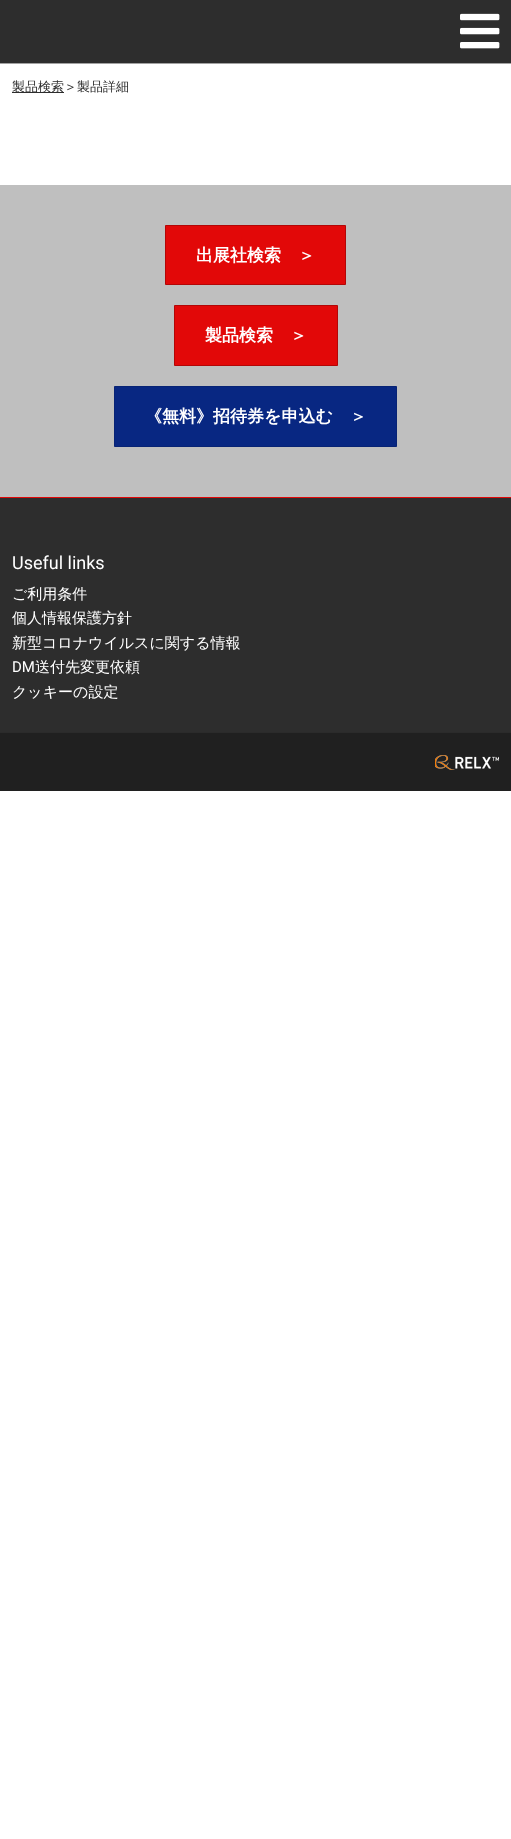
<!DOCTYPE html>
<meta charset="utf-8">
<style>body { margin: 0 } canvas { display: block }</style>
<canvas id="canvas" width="511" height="1839"></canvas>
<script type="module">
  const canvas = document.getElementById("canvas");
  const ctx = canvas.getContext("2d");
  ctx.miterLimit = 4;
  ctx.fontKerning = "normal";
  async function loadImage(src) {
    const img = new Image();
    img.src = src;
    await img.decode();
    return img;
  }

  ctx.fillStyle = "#ffffff";
  ctx.fillRect(0, 0, 511, 1839);
  ctx.fillStyle = "#2d2d2d";
  ctx.fillRect(0, 0, 511, 63);
  ctx.fillStyle = "#a2a2a2";
  ctx.fillRect(0, 63, 511, 1);
  ctx.drawImage(await loadImage("img1.png"), 460, 13, 40, 36);
  ctx.fillStyle = "#2d2d2d";
  ctx.fillRect(12, 92, 52, 1);
  ctx.font = "500 13px WenQuanYi Zen Hei";
  ctx.fillText("製品検索＞製品詳細", 12, 91);
  ctx.fillStyle = "#bfbfbf";
  ctx.fillRect(0, 185, 511, 312);
  ctx.fillStyle = "#e20808";
  ctx.beginPath();
  ctx.rect(165.5, 225.5, 180, 59);
  ctx.fill();
  ctx.strokeStyle = "#b30606";
  ctx.stroke();
  ctx.font = "bold 17px WenQuanYi Zen Hei";
  ctx.fillStyle = "#ffffff";
  ctx.fillText("出展社検索　＞", 196, 261);
  ctx.fillStyle = "#e20808";
  ctx.beginPath();
  ctx.rect(174.5, 305.5, 163, 60);
  ctx.fill();
  ctx.stroke();
  ctx.fillStyle = "#ffffff";
  ctx.fillText("製品検索　＞", 205, 341);
  ctx.fillStyle = "#082782";
  ctx.beginPath();
  ctx.rect(114.5, 386.5, 282, 60);
  ctx.fill();
  ctx.strokeStyle = "#072375";
  ctx.stroke();
  ctx.fillStyle = "#ffffff";
  ctx.fillText("《無料》招待券を申込む　＞", 145, 422);
  ctx.fillStyle = "#2d2d2d";
  ctx.fillRect(0, 498, 511, 234);
  ctx.fillStyle = "#e20808";
  ctx.fillRect(0, 497, 511, 1);
  ctx.font = "18px Roboto";
  ctx.fillStyle = "#ffffff";
  ctx.fillText("Useful links", 12, 569);
  ctx.font = "500 15px WenQuanYi Zen Hei";
  ctx.fillText("ご利用条件", 12, 599);
  ctx.fillText("個人情報保護方針", 12, 623);
  ctx.fillText("新型コロナウイルスに関する情報", 12, 648);
  ctx.font = "15px Roboto";
  ctx.fillText("DM", 12, 672);
  ctx.font = "500 15px WenQuanYi Zen Hei";
  ctx.fillText("送付先変更依頼", 35, 672);
  ctx.fillText("クッキーの設定", 12, 697);
  ctx.fillStyle = "#202020";
  ctx.fillRect(0, 733, 511, 58);
  ctx.fillStyle = "#2b2b2b";
  ctx.fillRect(0, 732, 511, 1);
  ctx.drawImage(await loadImage("img2.png"), 435, 755, 64, 15);
</script>
